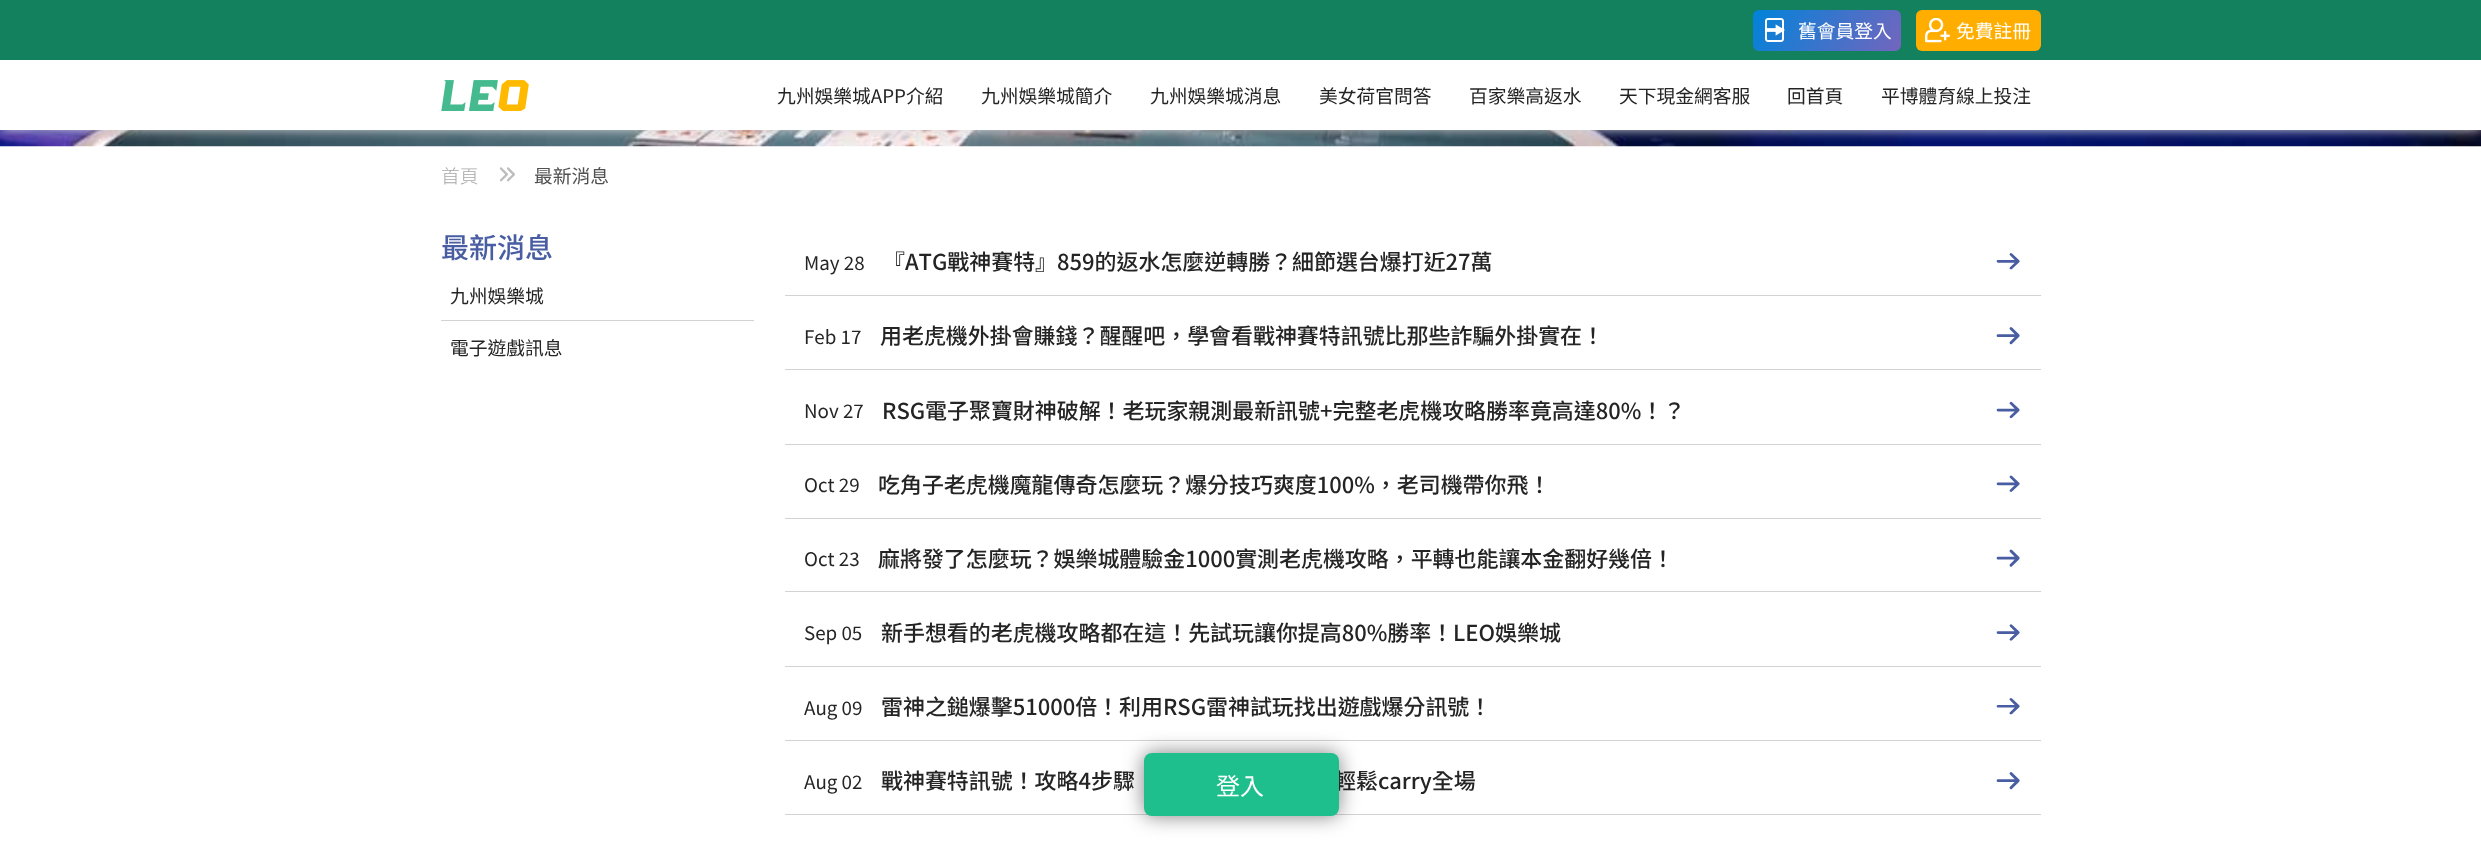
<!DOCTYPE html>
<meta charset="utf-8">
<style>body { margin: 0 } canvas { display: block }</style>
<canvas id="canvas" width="2481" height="841"></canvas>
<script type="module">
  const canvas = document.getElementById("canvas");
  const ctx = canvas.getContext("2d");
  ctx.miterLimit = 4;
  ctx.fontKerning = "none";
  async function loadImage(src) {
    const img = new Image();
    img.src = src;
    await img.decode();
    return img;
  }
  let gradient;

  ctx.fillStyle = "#ffffff";
  ctx.fillRect(0, 0, 2481, 841);
  ctx.drawImage(await loadImage("img4.png"), 0, 130, 2481, 17);
  ctx.fillStyle = "#d9d9d9";
  ctx.filter = "blur(6px)";
  ctx.beginPath();
  ctx.rect(0, 0, 2481, 130);
  ctx.fill();
  ctx.filter = "none";
  ctx.fillStyle = "#ffffff";
  ctx.fillRect(0, 60, 2481, 70);
  ctx.fillStyle = "#14815e";
  ctx.fillRect(0, 0, 2481, 60);
  gradient = ctx.createLinearGradient(1762, -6.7, 1892, 68);
  gradient.addColorStop(0, "#0083da");
  gradient.addColorStop(1, "#7465bd");
  ctx.fillStyle = gradient;
  ctx.beginPath();
  ctx.roundRect(1753, 10, 148, 41, 6);
  ctx.fill();
  ctx.drawImage(await loadImage("img1.png"), 1765, 18, 20, 24);
  ctx.font = "18.75px Noto Sans TC";
  ctx.fillStyle = "#ffffff";
  ctx.fillText("舊會員登入", 1798, 38);
  ctx.fillStyle = "#ffae00";
  ctx.beginPath();
  ctx.roundRect(1916, 10, 125, 41, 6);
  ctx.fill();
  ctx.drawImage(await loadImage("img2.png"), 1925, 18, 25, 25);
  ctx.fillStyle = "#ffffff";
  ctx.fillText("免費註冊", 1956, 38);
  ctx.fillStyle = "#d3d3d3";
  ctx.fillRect(785, 740, 1256, 1);
  ctx.fillRect(785, 814, 1256, 1);
  ctx.fillStyle = "rgba(0, 0, 0, 0.5)";
  ctx.filter = "blur(10px)";
  ctx.beginPath();
  ctx.roundRect(1144, 753, 195, 63, 8);
  ctx.fill();
  ctx.filter = "none";
  ctx.font = "500 21.95px Noto Sans TC";
  ctx.fillStyle = "#242424";
  ctx.fillText("輕鬆carry全場", 1334, 789);
  ctx.fillStyle = "#1ebf8c";
  ctx.beginPath();
  ctx.roundRect(1144, 753, 195, 63, 8);
  ctx.fill();
  ctx.font = "24px Noto Sans TC";
  ctx.fillStyle = "#ffffff";
  ctx.fillText("登入", 1216, 795);
  ctx.drawImage(await loadImage("img3.png"), 441, 80, 88, 31);
  ctx.font = "18.75px Noto Sans TC";
  ctx.fillStyle = "#242424";
  ctx.fillText("九州娛樂城APP介紹", 777, 103);
  ctx.fillText("九州娛樂城簡介", 981, 103);
  ctx.fillText("九州娛樂城消息", 1150, 103);
  ctx.fillText("美女荷官問答", 1319, 103);
  ctx.fillText("百家樂高返水", 1469, 103);
  ctx.fillText("天下現金網客服", 1619, 103);
  ctx.fillText("回首頁", 1787, 103);
  ctx.fillText("平博體育線上投注", 1881, 103);
  ctx.font = "300 18.75px Noto Sans TC";
  ctx.fillStyle = "#a7a7a7";
  ctx.fillText("首頁", 441, 183);
  ctx.drawImage(await loadImage("img5.png"), 499, 167, 16, 15);
  ctx.font = "18.75px Noto Sans TC";
  ctx.fillStyle = "#505050";
  ctx.fillText("最新消息", 534, 183);
  ctx.font = "500 28px Noto Sans TC";
  ctx.fillStyle = "#485da2";
  ctx.fillText("最新消息", 441, 258);
  ctx.fillStyle = "#d3d3d3";
  ctx.fillRect(441, 320, 313, 1);
  ctx.font = "18.75px Noto Sans TC";
  ctx.fillStyle = "#242424";
  ctx.fillText("九州娛樂城", 450, 303);
  ctx.fillText("電子遊戲訊息", 450, 355);
  ctx.fillStyle = "#d3d3d3";
  ctx.fillRect(785, 295, 1256, 1);
  ctx.fillStyle = "#242424";
  ctx.fillText("May 28", 804, 270);
  ctx.font = "500 21.95px Noto Sans TC";
  ctx.fillText("『ATG戰神賽特』859的返水怎麼逆轉勝？細節選台爆打近27萬", 883, 270);
  ctx.drawImage(await loadImage("img6.png"), 1996, 253, 24, 17);
  ctx.fillStyle = "#d3d3d3";
  ctx.fillRect(785, 369, 1256, 1);
  ctx.font = "18.75px Noto Sans TC";
  ctx.fillStyle = "#242424";
  ctx.fillText("Feb 17", 804, 344);
  ctx.font = "500 21.95px Noto Sans TC";
  ctx.fillText("用老虎機外掛會賺錢？醒醒吧，學會看戰神賽特訊號比那些詐騙外掛實在！", 880, 344);
  ctx.drawImage(await loadImage("img7.png"), 1996, 327, 24, 18);
  ctx.fillStyle = "#d3d3d3";
  ctx.fillRect(785, 444, 1256, 1);
  ctx.font = "18.75px Noto Sans TC";
  ctx.fillStyle = "#242424";
  ctx.fillText("Nov 27", 804, 418);
  ctx.font = "500 21.95px Noto Sans TC";
  ctx.fillText("RSG電子聚寶財神破解！老玩家親測最新訊號+完整老虎機攻略勝率竟高達80%！？", 882, 419);
  ctx.drawImage(await loadImage("img8.png"), 1996, 401, 24, 18);
  ctx.fillStyle = "#d3d3d3";
  ctx.fillRect(785, 518, 1256, 1);
  ctx.font = "18.75px Noto Sans TC";
  ctx.fillStyle = "#242424";
  ctx.fillText("Oct 29", 804, 492);
  ctx.font = "500 21.95px Noto Sans TC";
  ctx.fillText("吃角子老虎機魔龍傳奇怎麼玩？爆分技巧爽度100%，老司機帶你飛！", 878, 493);
  ctx.drawImage(await loadImage("img9.png"), 1996, 475, 24, 17);
  ctx.fillStyle = "#d3d3d3";
  ctx.fillRect(785, 591, 1256, 1);
  ctx.font = "18.75px Noto Sans TC";
  ctx.fillStyle = "#242424";
  ctx.fillText("Oct 23", 804, 566);
  ctx.font = "500 21.95px Noto Sans TC";
  ctx.fillText("麻將發了怎麼玩？娛樂城體驗金1000實測老虎機攻略，平轉也能讓本金翻好幾倍！", 878, 567);
  ctx.drawImage(await loadImage("img10.png"), 1996, 549, 24, 18);
  ctx.fillStyle = "#d3d3d3";
  ctx.fillRect(785, 666, 1256, 1);
  ctx.font = "18.75px Noto Sans TC";
  ctx.fillStyle = "#242424";
  ctx.fillText("Sep 05", 804, 640);
  ctx.font = "500 21.95px Noto Sans TC";
  ctx.fillText("新手想看的老虎機攻略都在這！先試玩讓你提高80%勝率！LEO娛樂城", 881, 641);
  ctx.drawImage(await loadImage("img11.png"), 1996, 624, 24, 17);
  ctx.font = "18.75px Noto Sans TC";
  ctx.fillText("Aug 09", 804, 715);
  ctx.font = "500 21.95px Noto Sans TC";
  ctx.fillText("雷神之鎚爆擊51000倍！利用RSG雷神試玩找出遊戲爆分訊號！", 881, 715);
  ctx.drawImage(await loadImage("img12.png"), 1996, 698, 24, 17);
  ctx.font = "18.75px Noto Sans TC";
  ctx.fillText("Aug 02", 804, 789);
  ctx.font = "500 21.95px Noto Sans TC";
  ctx.fillText("戰神賽特訊號！攻略4步驟", 881, 789);
  ctx.drawImage(await loadImage("img7.png"), 1996, 772, 24, 18);
</script>
